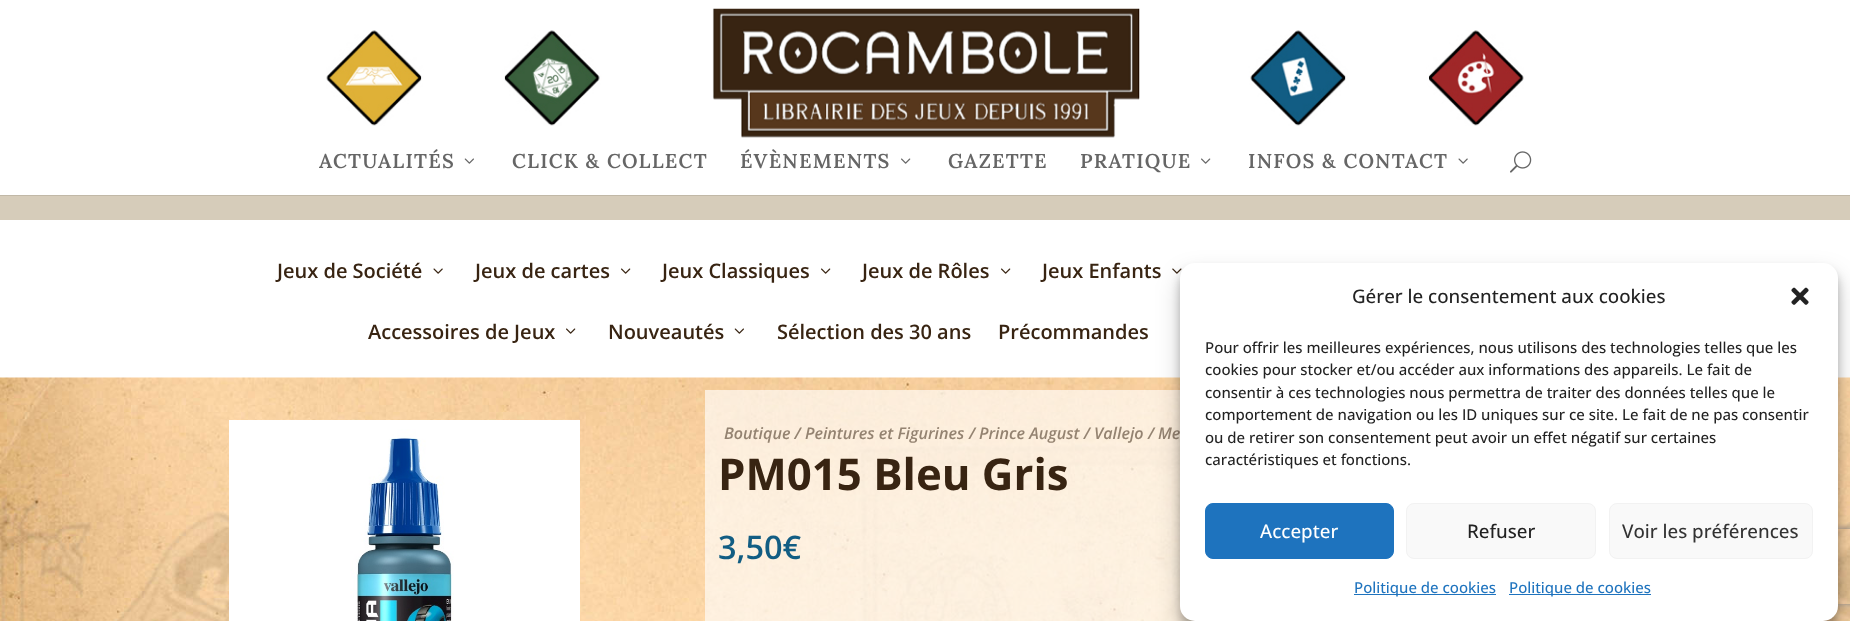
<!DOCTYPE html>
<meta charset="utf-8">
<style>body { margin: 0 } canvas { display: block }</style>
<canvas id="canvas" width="1850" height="621"></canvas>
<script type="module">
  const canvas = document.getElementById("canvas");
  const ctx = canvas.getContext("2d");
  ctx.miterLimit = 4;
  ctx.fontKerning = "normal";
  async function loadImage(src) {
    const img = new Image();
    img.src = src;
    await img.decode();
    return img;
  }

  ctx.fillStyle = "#d6ccba";
  ctx.fillRect(0, 0, 1850, 621);
  ctx.fillStyle = "#c1b8a7";
  ctx.fillRect(0, 195, 1850, 1);
  ctx.fillStyle = "#ffffff";
  ctx.fillRect(0, 0, 1850, 195);
  ctx.drawImage(await loadImage("img1.png"), 326, 30, 1198, 96);
  ctx.drawImage(await loadImage("img2.png"), 712, 8, 428, 130);
  ctx.letterSpacing = "1.25px";
  ctx.font = "600 20px Lora";
  ctx.fillStyle = "#666666";
  ctx.fillText("ACTUALITÉS", 319, 168);
  ctx.drawImage(await loadImage("img3.png"), 464, 158, 10, 6);
  ctx.fillText("CLICK & COLLECT", 512, 168);
  ctx.fillText("ÉVÈNEMENTS", 740, 168);
  ctx.drawImage(await loadImage("img4.png"), 901, 158, 10, 6);
  ctx.fillText("GAZETTE", 948, 168);
  ctx.fillText("PRATIQUE", 1080, 168);
  ctx.drawImage(await loadImage("img4.png"), 1201, 158, 10, 6);
  ctx.fillText("INFOS & CONTACT", 1248, 168);
  ctx.drawImage(await loadImage("img5.png"), 1458, 158, 10, 6);
  ctx.drawImage(await loadImage("img6.png"), 1510, 151, 22, 22);
  ctx.fillStyle = "#ffffff";
  ctx.fillRect(0, 220, 1850, 158);
  ctx.letterSpacing = "0px";
  ctx.font = "600 20px Open Sans";
  ctx.fillStyle = "#382412";
  ctx.fillText("Jeux de Société", 277, 278);
  ctx.drawImage(await loadImage("img7.png"), 433, 268, 10, 6);
  ctx.fillText("Jeux de cartes", 475, 278);
  ctx.drawImage(await loadImage("img8.png"), 621, 268, 10, 6);
  ctx.fillText("Jeux Classiques", 662, 278);
  ctx.drawImage(await loadImage("img8.png"), 821, 268, 10, 6);
  ctx.fillText("Jeux de Rôles", 862, 278);
  ctx.drawImage(await loadImage("img8.png"), 1001, 268, 10, 6);
  ctx.fillText("Jeux Enfants", 1042, 278);
  ctx.drawImage(await loadImage("img9.png"), 1172, 268, 10, 6);
  ctx.fillText("Accessoires de Jeux", 368, 339);
  ctx.drawImage(await loadImage("img8.png"), 566, 328, 10, 6);
  ctx.fillText("Nouveautés", 608, 339);
  ctx.drawImage(await loadImage("img10.png"), 734, 328, 10, 6);
  ctx.fillText("Sélection des 30 ans", 777, 339);
  ctx.fillText("Précommandes", 998, 339);
  ctx.drawImage(await loadImage("img11.png"), 0, 377, 1850, 244);
  ctx.drawImage(await loadImage("img12.png"), 229, 420, 351, 201);
  ctx.fillStyle = "rgba(255, 255, 255, 0.64)";
  ctx.fillRect(705, 390, 475, 99);
  ctx.font = "italic 600 16.1px Open Sans";
  ctx.fillStyle = "#948371";
  ctx.fillText("Boutique / Peintures et Figurines", 724, 439);
  ctx.fillText("/", 969, 439);
  ctx.fillText("Prince August / Vallejo", 979, 439);
  ctx.fillText("/", 1148, 439);
  ctx.fillText("Me", 1158, 439);
  ctx.fillStyle = "rgba(255, 255, 255, 0.64)";
  ctx.fillRect(705, 489, 490, 132);
  ctx.font = "bold 43.75px Open Sans";
  ctx.fillStyle = "#382412";
  ctx.fillText("PM015 Bleu Gris", 718, 490);
  ctx.font = "600 32.5px Open Sans";
  ctx.fillStyle = "#125d83";
  ctx.fillText("3,50€", 718, 559);
  ctx.fillStyle = "rgba(0, 0, 0, 0.23)";
  ctx.filter = "blur(4px)";
  ctx.beginPath();
  ctx.roundRect(1180, 270, 658, 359, 15);
  ctx.fill();
  ctx.filter = "none";
  ctx.fillStyle = "rgba(0, 0, 0, 0.19)";
  ctx.filter = "blur(12.5px)";
  ctx.beginPath();
  ctx.roundRect(1180, 275, 658, 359, 15);
  ctx.fill();
  ctx.filter = "none";
  ctx.save();
  ctx.beginPath();
  ctx.moveTo(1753, 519);
  ctx.lineTo(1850, 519);
  ctx.lineTo(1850, 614);
  ctx.lineTo(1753, 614);
  ctx.closePath();
  ctx.moveTo(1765.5, 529);
  ctx.lineTo(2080.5, 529);
  ctx.bezierCurveTo(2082, 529, 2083, 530, 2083, 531.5);
  ctx.lineTo(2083, 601.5);
  ctx.bezierCurveTo(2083, 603, 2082, 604, 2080.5, 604);
  ctx.lineTo(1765.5, 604);
  ctx.bezierCurveTo(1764, 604, 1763, 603, 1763, 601.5);
  ctx.lineTo(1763, 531.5);
  ctx.bezierCurveTo(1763, 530, 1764, 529, 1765.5, 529);
  ctx.closePath();
  ctx.clip("evenodd");
  ctx.fillStyle = "#808080";
  ctx.filter = "blur(3px)";
  ctx.beginPath();
  ctx.roundRect(1763, 529, 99, 75, 2.5);
  ctx.fill();
  ctx.filter = "none";
  ctx.restore();
  ctx.fillStyle = "#ffffff";
  ctx.beginPath();
  ctx.roundRect(1180, 263, 658, 358, 15);
  ctx.fill();
  ctx.font = "500 18.75px Open Sans";
  ctx.fillStyle = "#222222";
  ctx.fillText("Gérer le consentement aux cookies", 1352, 303);
  ctx.drawImage(await loadImage("img13.png"), 1791, 287, 18, 18);
  ctx.font = "500 15px Open Sans";
  ctx.fillText("Pour offrir les meilleures expériences, nous utilisons des technologies telles que les", 1205, 353);
  ctx.fillText("cookies pour stocker et/ou accéder aux informations des appareils. Le fait de", 1205, 375);
  ctx.fillText("consentir à ces technologies nous permettra de traiter des données telles que le", 1205, 398);
  ctx.fillText("comportement de navigation ou les ID uniques sur ce site. Le fait de ne pas consentir", 1205, 420);
  ctx.fillText("ou de retirer son consentement peut avoir un effet négatif sur certaines", 1205, 443);
  ctx.fillText("caractéristiques et fonctions.", 1205, 465);
  ctx.fillStyle = "#1e73be";
  ctx.beginPath();
  ctx.roundRect(1205.5, 503.5, 188, 55, 7.5);
  ctx.fill();
  ctx.strokeStyle = "#1e73be";
  ctx.stroke();
  ctx.font = "500 18.75px Open Sans";
  ctx.fillStyle = "#ffffff";
  ctx.fillText("Accepter", 1260, 538);
  ctx.fillStyle = "#f9f9f9";
  ctx.beginPath();
  ctx.roundRect(1406.5, 503.5, 189, 55, 7.5);
  ctx.fill();
  ctx.strokeStyle = "#f2f2f2";
  ctx.stroke();
  ctx.fillStyle = "#222222";
  ctx.fillText("Refuser", 1467, 538);
  ctx.fillStyle = "#f9f9f9";
  ctx.beginPath();
  ctx.roundRect(1609.5, 503.5, 203, 55, 7.5);
  ctx.fill();
  ctx.stroke();
  ctx.fillStyle = "#333333";
  ctx.fillText("Voir les préférences", 1622, 538);
  ctx.fillStyle = "#1e73be";
  ctx.fillRect(1354, 594, 142, 1);
  ctx.font = "500 15px Open Sans";
  ctx.fillText("Politique de cookies", 1354, 593);
  ctx.fillRect(1509, 594, 142, 1);
  ctx.fillText("Politique de cookies", 1509, 593);
</script>
